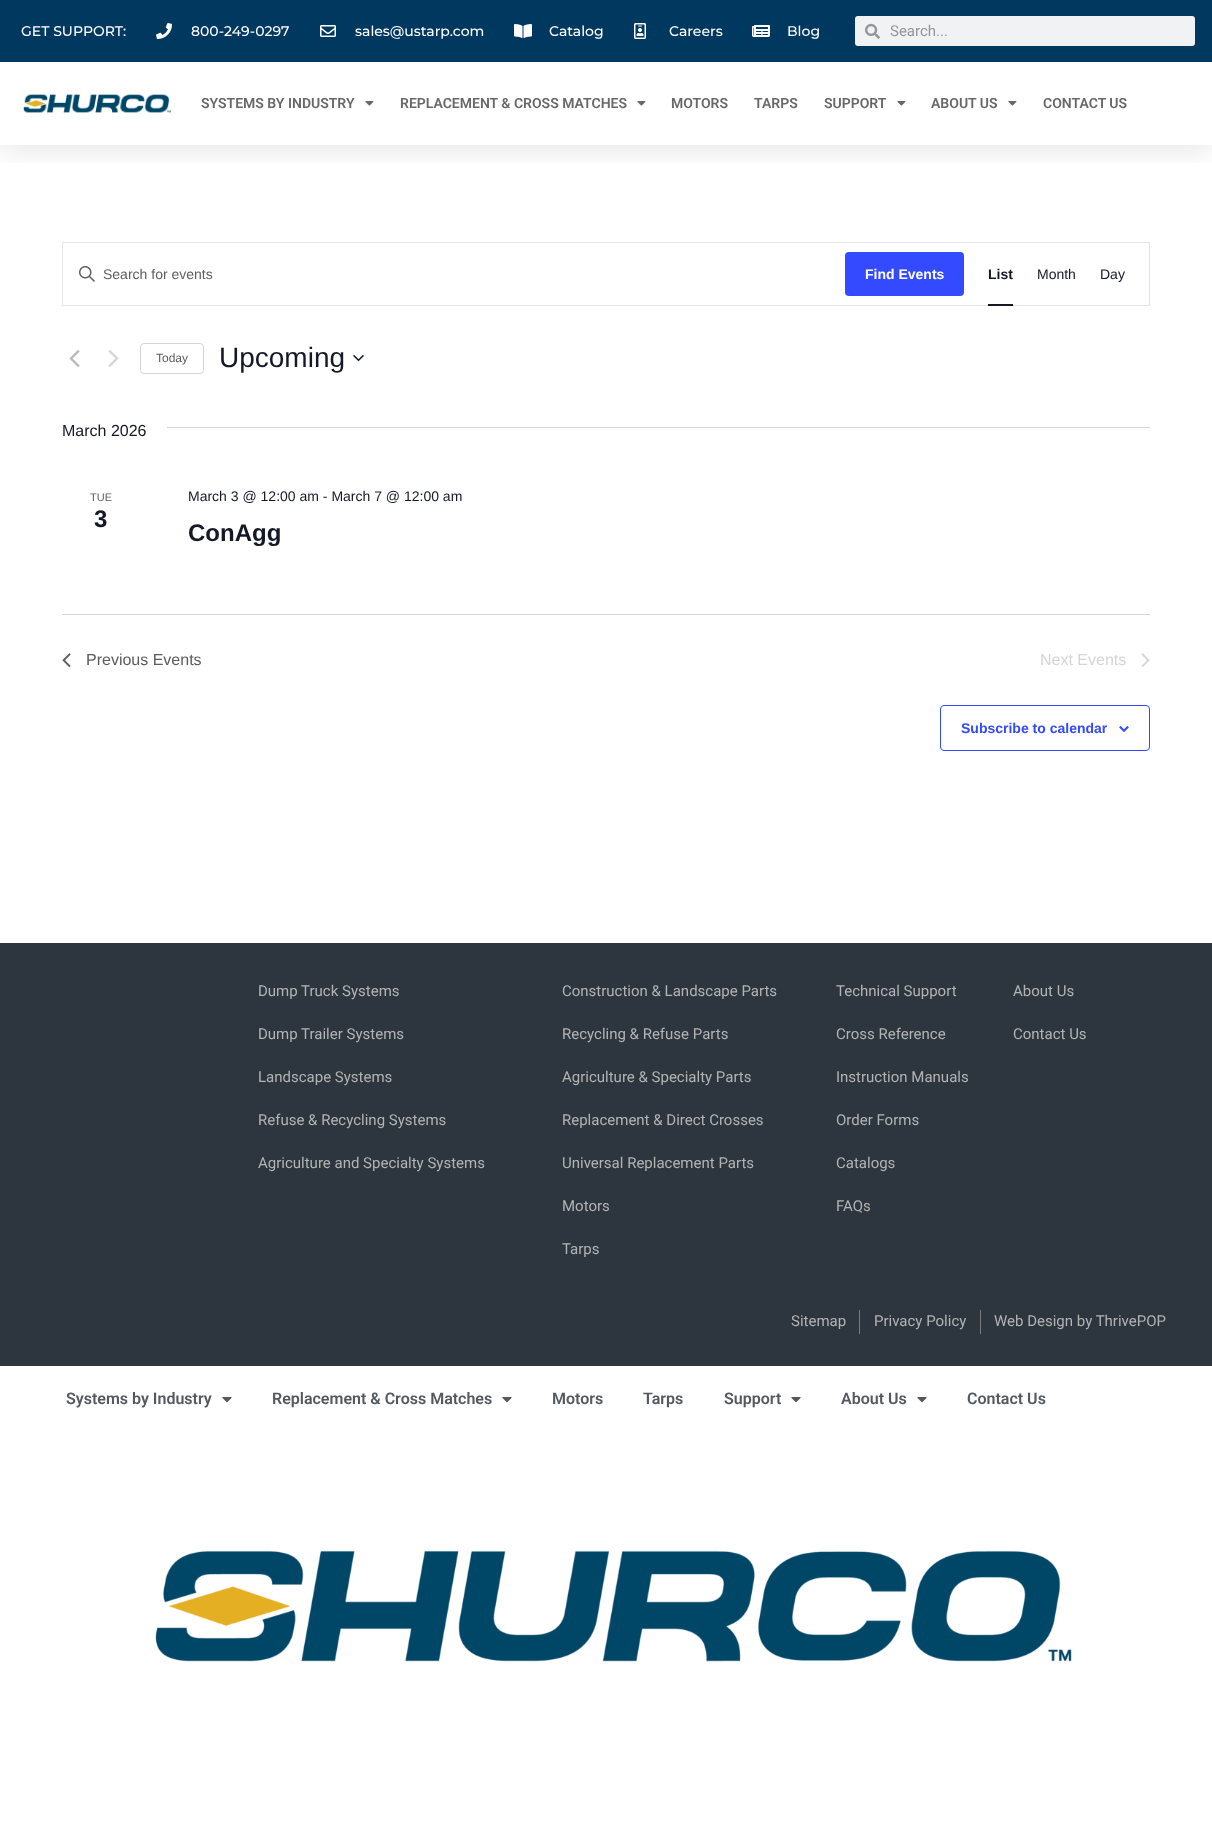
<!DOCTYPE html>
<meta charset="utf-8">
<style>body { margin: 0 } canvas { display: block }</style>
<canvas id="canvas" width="1212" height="1848"></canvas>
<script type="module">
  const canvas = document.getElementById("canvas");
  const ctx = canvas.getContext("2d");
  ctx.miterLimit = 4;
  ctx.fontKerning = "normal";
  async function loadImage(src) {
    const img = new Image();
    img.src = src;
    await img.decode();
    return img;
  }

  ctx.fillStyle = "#ffffff";
  ctx.fillRect(0, 0, 1212, 1848);
  ctx.save();
  ctx.beginPath();
  ctx.rect(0, 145, 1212, 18);
  ctx.clip();
  ctx.fillStyle = "rgba(0, 0, 0, 0.1)";
  ctx.filter = "blur(15px)";
  ctx.beginPath();
  ctx.rect(0, 5, 1212, 145);
  ctx.fill();
  ctx.filter = "none";
  ctx.restore();
  ctx.fillStyle = "#003860";
  ctx.fillRect(0, 0, 1212, 62);
  ctx.font = "500 14px Montserrat";
  ctx.fillStyle = "#ffffff";
  ctx.fillText("GET SUPPORT:", 21, 36);
  ctx.drawImage(await loadImage("img1.png"), 156, 23, 16, 16);
  ctx.fillText("800-249-0297", 191, 36);
  ctx.drawImage(await loadImage("img2.png"), 320, 25, 16, 12);
  ctx.fillText("sales@ustarp.com", 355, 36);
  ctx.drawImage(await loadImage("img3.png"), 514, 24, 18, 14);
  ctx.fillText("Catalog", 549, 36);
  ctx.drawImage(await loadImage("img4.png"), 634, 23, 12, 16);
  ctx.fillText("Careers", 669, 36);
  ctx.drawImage(await loadImage("img5.png"), 752, 25, 18, 12);
  ctx.fillText("Blog", 787, 36);
  ctx.fillStyle = "#f1f2f3";
  ctx.beginPath();
  ctx.roundRect(855, 16, 340, 30, 3);
  ctx.fill();
  ctx.drawImage(await loadImage("img6.png"), 865, 23, 15, 16);
  ctx.font = "15px Roboto";
  ctx.fillStyle = "#93969a";
  ctx.fillText("Search...", 890, 36);
  ctx.drawImage(await loadImage("img7.png"), 23, 94, 148, 19);
  ctx.font = "600 14px Roboto";
  ctx.fillStyle = "#686868";
  ctx.fillText("SYSTEMS BY INDUSTRY", 201, 108);
  ctx.drawImage(await loadImage("img8.png"), 365, 101, 9, 5);
  ctx.fillText("REPLACEMENT & CROSS MATCHES", 400, 108);
  ctx.drawImage(await loadImage("img8.png"), 637, 101, 9, 5);
  ctx.fillText("MOTORS", 671, 108);
  ctx.fillText("TARPS", 754, 108);
  ctx.fillText("SUPPORT", 824, 108);
  ctx.drawImage(await loadImage("img8.png"), 897, 101, 9, 5);
  ctx.fillText("ABOUT US", 931, 108);
  ctx.drawImage(await loadImage("img8.png"), 1008, 101, 9, 5);
  ctx.fillText("CONTACT US", 1043, 108);
  ctx.strokeStyle = "#e4e4e4";
  ctx.strokeRect(62.5, 242.5, 1087, 63);
  ctx.drawImage(await loadImage("img9.png"), 79, 266, 16, 16);
  ctx.font = "14px Liberation Sans";
  ctx.fillStyle = "#5d5d5d";
  ctx.fillText("Search for events", 103, 279);
  ctx.fillStyle = "#334aff";
  ctx.beginPath();
  ctx.roundRect(845, 252, 119, 44, 4);
  ctx.fill();
  ctx.font = "bold 14px Liberation Sans";
  ctx.fillStyle = "#ffffff";
  ctx.fillText("Find Events", 865, 279);
  ctx.fillStyle = "#141827";
  ctx.fillText("List", 988, 279);
  ctx.fillRect(988, 304, 25, 2);
  ctx.font = "14px Liberation Sans";
  ctx.fillText("Month", 1037, 279);
  ctx.fillText("Day", 1100, 279);
  ctx.drawImage(await loadImage("img10.png"), 69, 350, 11, 17);
  ctx.drawImage(await loadImage("img11.png"), 108, 350, 11, 17);
  ctx.beginPath();
  ctx.roundRect(140.5, 343.5, 63, 30, 3.5);
  ctx.strokeStyle = "#d5d5d5";
  ctx.stroke();
  ctx.font = "12px Liberation Sans";
  ctx.fillStyle = "#5d5d5d";
  ctx.fillText("Today", 156, 362);
  ctx.font = "28px Liberation Sans";
  ctx.fillStyle = "#141827";
  ctx.fillText("Upcoming", 219, 367);
  ctx.drawImage(await loadImage("img12.png"), 353, 354, 11, 8);
  ctx.font = "16px Liberation Sans";
  ctx.fillText("March 2026", 62, 436);
  ctx.fillStyle = "#d5d5d5";
  ctx.fillRect(167, 427, 983, 1);
  ctx.font = "11px Liberation Sans";
  ctx.fillStyle = "#5d5d5d";
  ctx.fillText("TUE", 90, 501);
  ctx.font = "bold 24px Liberation Sans";
  ctx.fillStyle = "#141827";
  ctx.fillText("3", 94, 527);
  ctx.font = "14px Liberation Sans";
  ctx.fillText("March 3 @ 12:00 am - March 7 @ 12:00 am", 188, 501);
  ctx.font = "bold 24px Liberation Sans";
  ctx.fillText("ConAgg", 188, 541);
  ctx.fillStyle = "#d5d5d5";
  ctx.fillRect(62, 614, 1088, 1);
  ctx.drawImage(await loadImage("img13.png"), 62, 653, 9, 14);
  ctx.font = "16px Liberation Sans";
  ctx.fillStyle = "#5d5d5d";
  ctx.fillText("Previous Events", 86, 665);
  ctx.fillStyle = "#d5d5d5";
  ctx.fillText("Next Events", 1040, 665);
  ctx.drawImage(await loadImage("img14.png"), 1141, 653, 9, 14);
  ctx.beginPath();
  ctx.roundRect(940.5, 705.5, 209, 45, 3.5);
  ctx.strokeStyle = "#334aff";
  ctx.stroke();
  ctx.font = "bold 14px Liberation Sans";
  ctx.fillStyle = "#334aff";
  ctx.fillText("Subscribe to calendar", 961, 733);
  ctx.drawImage(await loadImage("img15.png"), 1119, 726, 10, 6);
  ctx.fillStyle = "#2d363f";
  ctx.fillRect(0, 943, 1212, 423);
  ctx.font = "15px Roboto";
  ctx.fillStyle = "#b3b3b3";
  ctx.fillText("Dump Truck Systems", 258, 996);
  ctx.fillText("Dump Trailer Systems", 258, 1039);
  ctx.fillText("Landscape Systems", 258, 1082);
  ctx.fillText("Refuse & Recycling Systems", 258, 1125);
  ctx.fillText("Agriculture and Specialty Systems", 258, 1168);
  ctx.fillText("Construction & Landscape Parts", 562, 996);
  ctx.fillText("Recycling & Refuse Parts", 562, 1039);
  ctx.fillText("Agriculture & Specialty Parts", 562, 1082);
  ctx.fillText("Replacement & Direct Crosses", 562, 1125);
  ctx.fillText("Universal Replacement Parts", 562, 1168);
  ctx.fillText("Motors", 562, 1211);
  ctx.fillText("Tarps", 562, 1254);
  ctx.fillText("Technical Support", 836, 996);
  ctx.fillText("Cross Reference", 836, 1039);
  ctx.fillText("Instruction Manuals", 836, 1082);
  ctx.fillText("Order Forms", 836, 1125);
  ctx.fillText("Catalogs", 836, 1168);
  ctx.fillText("FAQs", 836, 1211);
  ctx.fillText("About Us", 1013, 996);
  ctx.fillText("Contact Us", 1013, 1039);
  ctx.fillText("Sitemap", 791, 1326);
  ctx.fillStyle = "#7a7a7a";
  ctx.fillRect(859, 1310, 1, 24);
  ctx.fillStyle = "#b3b3b3";
  ctx.fillText("Privacy Policy", 874, 1326);
  ctx.fillStyle = "#7a7a7a";
  ctx.fillRect(980, 1310, 1, 24);
  ctx.fillStyle = "#b3b3b3";
  ctx.fillText("Web Design by ThrivePOP", 994, 1326);
  ctx.font = "600 16px Roboto";
  ctx.fillStyle = "#54595f";
  ctx.fillText("Systems by Industry", 66, 1404);
  ctx.drawImage(await loadImage("img16.png"), 222, 1397, 10, 6);
  ctx.fillText("Replacement & Cross Matches", 272, 1404);
  ctx.drawImage(await loadImage("img16.png"), 502, 1397, 10, 6);
  ctx.fillText("Motors", 552, 1404);
  ctx.fillText("Tarps", 643, 1404);
  ctx.fillText("Support", 724, 1404);
  ctx.drawImage(await loadImage("img16.png"), 791, 1397, 10, 6);
  ctx.fillText("About Us", 841, 1404);
  ctx.drawImage(await loadImage("img16.png"), 917, 1397, 10, 6);
  ctx.fillText("Contact Us", 967, 1404);
  ctx.drawImage(await loadImage("img17.png"), 155, 1550, 917, 112);
</script>
